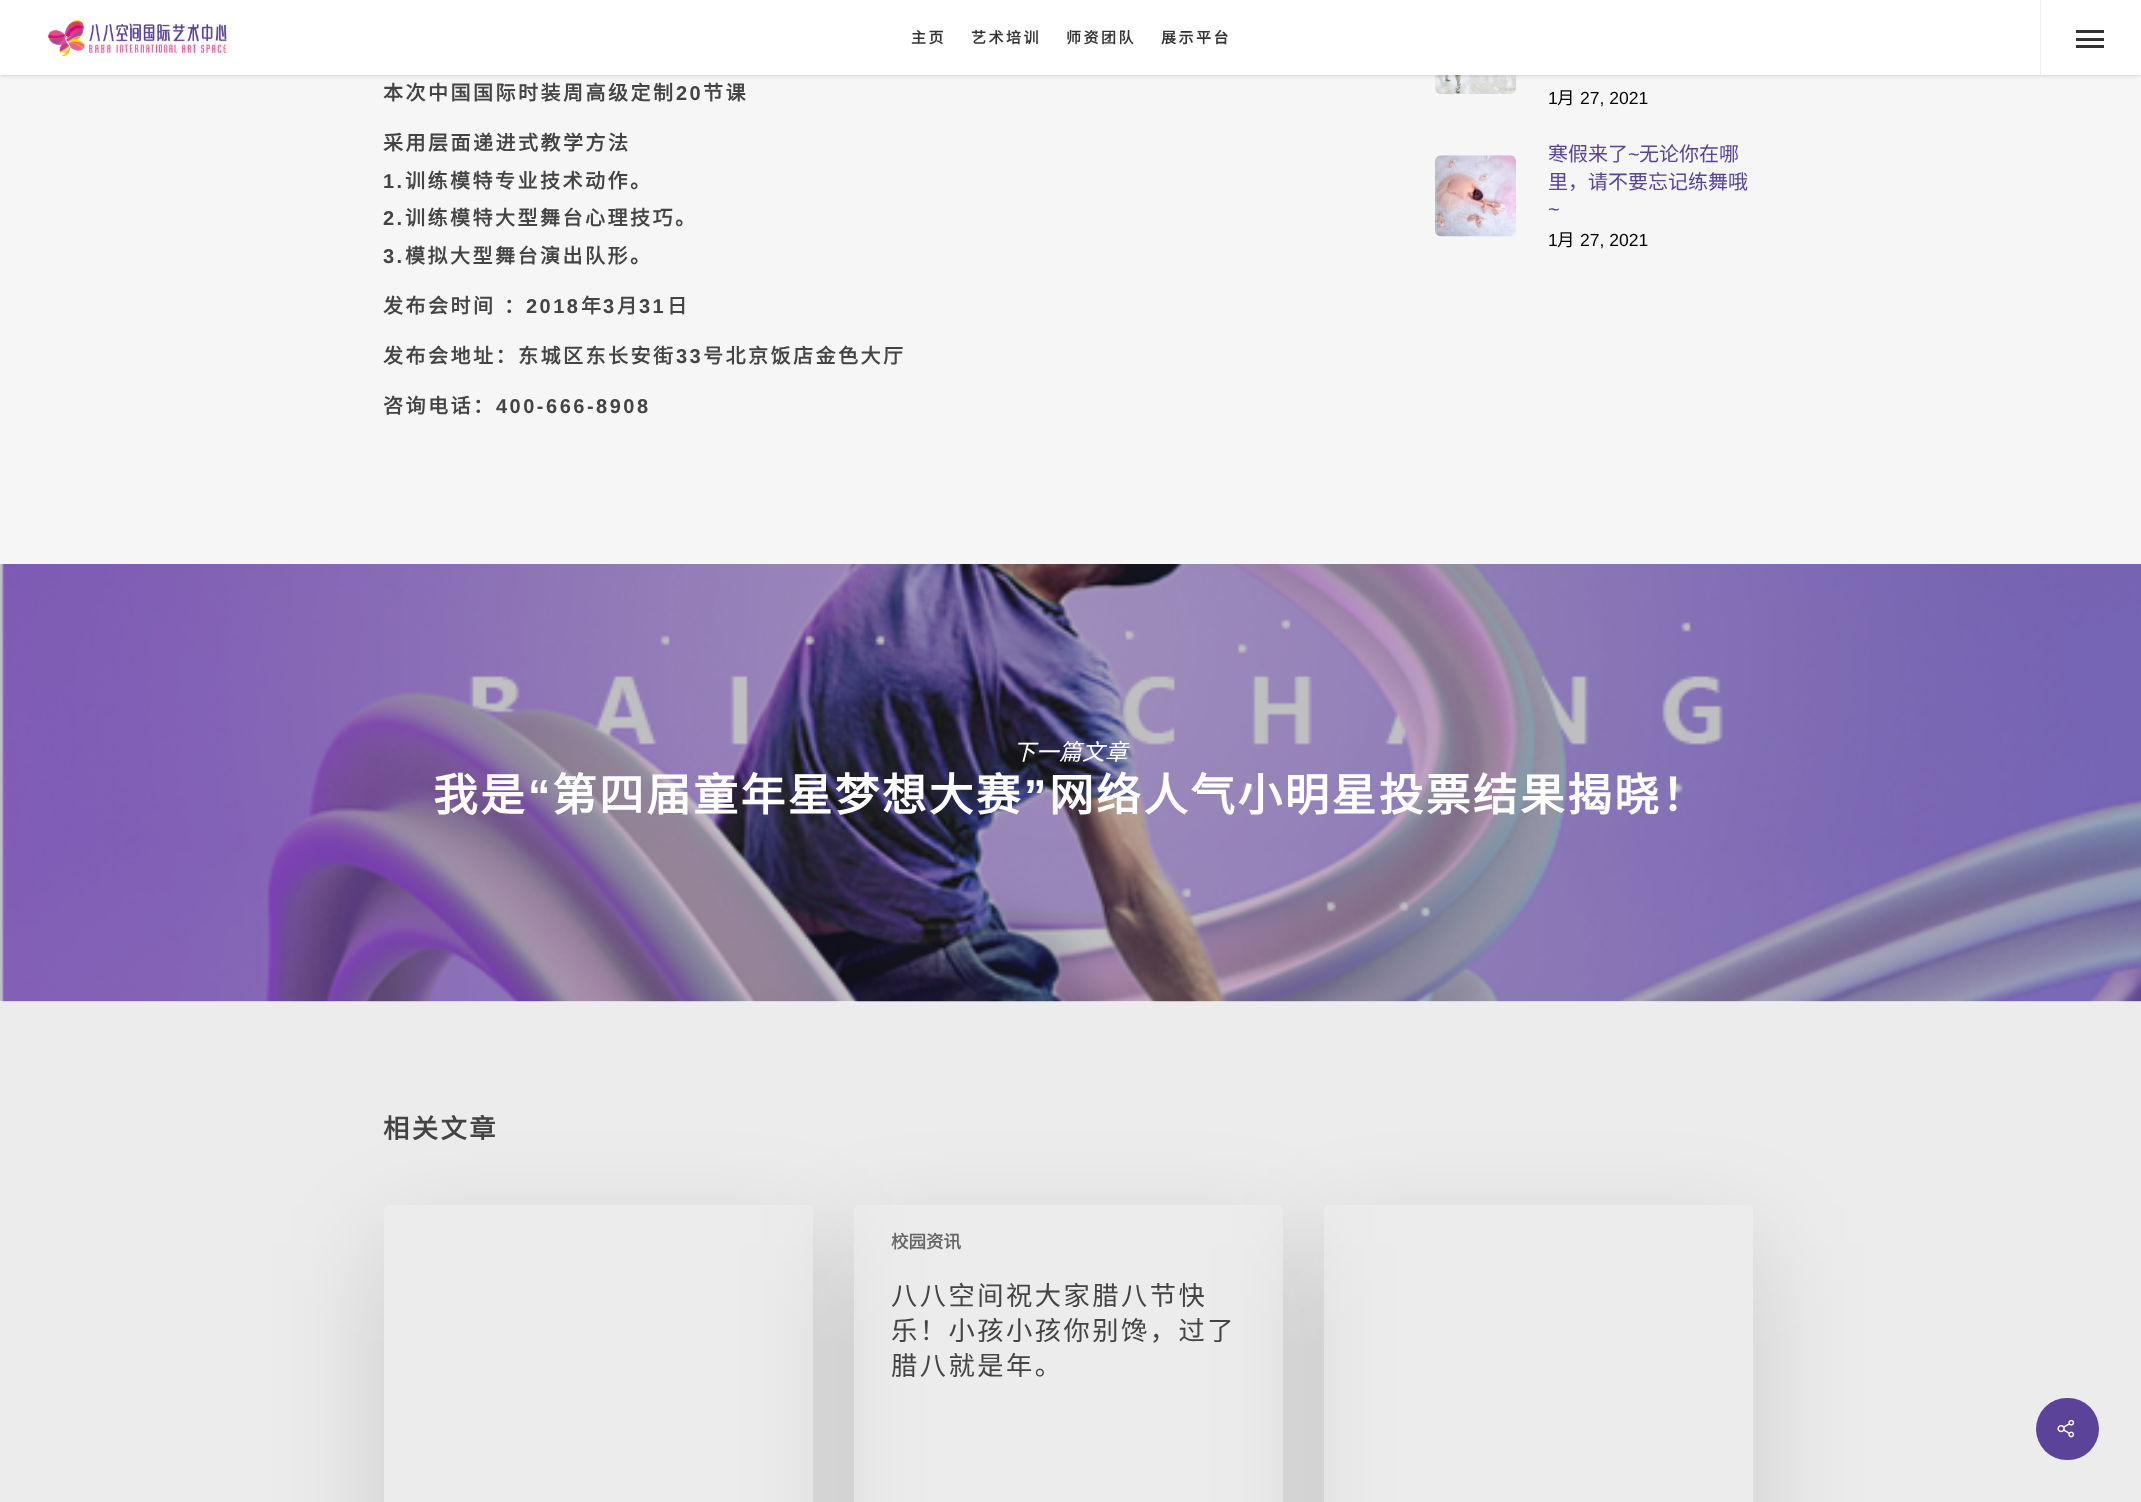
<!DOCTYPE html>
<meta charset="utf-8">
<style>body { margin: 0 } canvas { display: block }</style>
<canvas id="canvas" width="2141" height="1502"></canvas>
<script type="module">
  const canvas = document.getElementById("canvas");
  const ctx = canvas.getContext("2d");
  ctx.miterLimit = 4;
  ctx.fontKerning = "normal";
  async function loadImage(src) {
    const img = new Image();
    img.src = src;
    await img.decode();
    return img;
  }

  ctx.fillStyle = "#f6f6f6";
  ctx.fillRect(0, 0, 2141, 1502);
  ctx.drawImage(await loadImage("img2.png"), 1435, 75, 82, 19);
  ctx.fillStyle = "rgba(0, 0, 0, 0.22)";
  ctx.filter = "blur(2px)";
  ctx.beginPath();
  ctx.rect(0, 0, 2141, 75);
  ctx.fill();
  ctx.filter = "none";
  ctx.fillStyle = "#ffffff";
  ctx.fillRect(0, 0, 2141, 75);
  ctx.drawImage(await loadImage("img1.png"), 48, 20, 179, 37);
  ctx.letterSpacing = "2.5px";
  ctx.font = "bold 15px Noto Sans CJK SC";
  ctx.fillStyle = "#333333";
  ctx.fillText("主页", 911, 43);
  ctx.fillText("艺术培训", 971, 43);
  ctx.fillText("师资团队", 1066, 43);
  ctx.fillText("展示平台", 1161, 43);
  ctx.fillStyle = "#eeeeee";
  ctx.fillRect(2040, 0, 1, 75);
  ctx.fillStyle = "#333333";
  ctx.fillRect(2076, 30, 28, 3);
  ctx.fillRect(2076, 45, 28, 3);
  ctx.fillRect(2076, 38, 28, 3);
  ctx.font = "bold 20px Noto Sans CJK SC";
  ctx.fillStyle = "#444444";
  ctx.fillText("本次中国国际时装周高级定制", 383, 100);
  ctx.font = "bold 20px Liberation Sans";
  ctx.fillText("20", 676, 100);
  ctx.font = "bold 20px Noto Sans CJK SC";
  ctx.fillText("节课", 703, 100);
  ctx.fillText("采用层面递进式教学方法", 383, 150);
  ctx.font = "bold 20px Liberation Sans";
  ctx.fillText("1.", 383, 188);
  ctx.font = "bold 20px Noto Sans CJK SC";
  ctx.fillText("训练模特专业技术动作。", 405, 188);
  ctx.font = "bold 20px Liberation Sans";
  ctx.fillText("2.", 383, 225);
  ctx.font = "bold 20px Noto Sans CJK SC";
  ctx.fillText("训练模特大型舞台心理技巧。", 405, 225);
  ctx.font = "bold 20px Liberation Sans";
  ctx.fillText("3.", 383, 263);
  ctx.font = "bold 20px Noto Sans CJK SC";
  ctx.fillText("模拟大型舞台演出队形。", 405, 263);
  ctx.fillText("发布会时间", 383, 313);
  ctx.fillText("：", 504, 313);
  ctx.font = "bold 20px Liberation Sans";
  ctx.fillText("2018", 526, 313);
  ctx.font = "bold 20px Noto Sans CJK SC";
  ctx.fillText("年", 581, 313);
  ctx.font = "bold 20px Liberation Sans";
  ctx.fillText("3", 603, 313);
  ctx.font = "bold 20px Noto Sans CJK SC";
  ctx.fillText("月", 617, 313);
  ctx.font = "bold 20px Liberation Sans";
  ctx.fillText("31", 639, 313);
  ctx.font = "bold 20px Noto Sans CJK SC";
  ctx.fillText("日", 667, 313);
  ctx.fillText("发布会地址：东城区东长安街", 383, 363);
  ctx.font = "bold 20px Liberation Sans";
  ctx.fillText("33", 676, 363);
  ctx.font = "bold 20px Noto Sans CJK SC";
  ctx.fillText("号北京饭店金色大厅", 703, 363);
  ctx.fillText("咨询电话：", 383, 413);
  ctx.font = "bold 20px Liberation Sans";
  ctx.fillText("400-666-8908", 496, 413);
  ctx.letterSpacing = "0px";
  ctx.font = "17.5px Liberation Sans";
  ctx.fillStyle = "#000000";
  ctx.fillText("1", 1548, 104);
  ctx.font = "17.5px Noto Sans CJK SC";
  ctx.fillText("月", 1557, 104);
  ctx.font = "17.5px Liberation Sans";
  ctx.fillText("27, 2021", 1580, 104);
  ctx.drawImage(await loadImage("img3.png"), 1435, 155, 81, 82);
  ctx.font = "20px Noto Sans CJK SC";
  ctx.fillStyle = "#5a4398";
  ctx.fillText("寒假来了", 1548, 161);
  ctx.font = "20px Liberation Sans";
  ctx.fillText("~", 1628, 161);
  ctx.font = "20px Noto Sans CJK SC";
  ctx.fillText("无论你在哪", 1639, 161);
  ctx.fillText("里，请不要忘记练舞哦", 1548, 189);
  ctx.font = "20px Liberation Sans";
  ctx.fillText("~", 1548, 216);
  ctx.font = "17.5px Liberation Sans";
  ctx.fillStyle = "#000000";
  ctx.fillText("1", 1548, 246);
  ctx.font = "17.5px Noto Sans CJK SC";
  ctx.fillText("月", 1557, 246);
  ctx.font = "17.5px Liberation Sans";
  ctx.fillText("27, 2021", 1580, 246);
  ctx.drawImage(await loadImage("img4.png"), 0, 564, 2141, 438);
  ctx.letterSpacing = "0.5px";
  ctx.font = "italic 22.5px Noto Sans CJK SC";
  ctx.fillStyle = "#ffffff";
  ctx.fillText("下一篇文章", 1013, 760);
  ctx.letterSpacing = "2.5px";
  ctx.font = "bold 44.6px Noto Sans CJK SC";
  ctx.fillText("我是", 433, 811);
  ctx.font = "bold 44.6px Liberation Sans";
  ctx.fillText("“", 528, 811);
  ctx.font = "bold 44.6px Noto Sans CJK SC";
  ctx.fillText("第四届童年星梦想大赛", 552, 811);
  ctx.font = "bold 44.6px Liberation Sans";
  ctx.fillText("”", 1024, 811);
  ctx.font = "bold 44.6px Noto Sans CJK SC";
  ctx.fillText("网络人气小明星投票结果揭晓！", 1049, 811);
  ctx.fillStyle = "rgba(0, 0, 0, 0.04)";
  ctx.fillRect(0, 1001, 2141, 501);
  ctx.font = "bold 26.25px Noto Sans CJK SC";
  ctx.fillStyle = "#444444";
  ctx.fillText("相关文章", 383, 1138);
  ctx.save();
  ctx.beginPath();
  ctx.moveTo(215, 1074);
  ctx.lineTo(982, 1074);
  ctx.lineTo(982, 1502);
  ctx.lineTo(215, 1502);
  ctx.closePath();
  ctx.moveTo(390, 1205);
  ctx.lineTo(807, 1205);
  ctx.bezierCurveTo(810.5, 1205, 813, 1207.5, 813, 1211);
  ctx.lineTo(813, 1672);
  ctx.bezierCurveTo(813, 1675.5, 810.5, 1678, 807, 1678);
  ctx.lineTo(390, 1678);
  ctx.bezierCurveTo(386.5, 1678, 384, 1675.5, 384, 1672);
  ctx.lineTo(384, 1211);
  ctx.bezierCurveTo(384, 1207.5, 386.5, 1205, 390, 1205);
  ctx.closePath();
  ctx.clip("evenodd");
  ctx.fillStyle = "rgba(0, 0, 0, 0.14)";
  ctx.filter = "blur(56px)";
  ctx.beginPath();
  ctx.roundRect(384, 1243, 429, 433, 6);
  ctx.fill();
  ctx.filter = "none";
  ctx.restore();
  ctx.save();
  ctx.beginPath();
  ctx.moveTo(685, 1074);
  ctx.lineTo(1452, 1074);
  ctx.lineTo(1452, 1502);
  ctx.lineTo(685, 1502);
  ctx.closePath();
  ctx.moveTo(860, 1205);
  ctx.lineTo(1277, 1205);
  ctx.bezierCurveTo(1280.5, 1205, 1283, 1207.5, 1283, 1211);
  ctx.lineTo(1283, 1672);
  ctx.bezierCurveTo(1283, 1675.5, 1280.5, 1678, 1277, 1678);
  ctx.lineTo(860, 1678);
  ctx.bezierCurveTo(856.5, 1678, 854, 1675.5, 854, 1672);
  ctx.lineTo(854, 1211);
  ctx.bezierCurveTo(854, 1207.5, 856.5, 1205, 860, 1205);
  ctx.closePath();
  ctx.clip("evenodd");
  ctx.fillStyle = "rgba(0, 0, 0, 0.14)";
  ctx.filter = "blur(56px)";
  ctx.beginPath();
  ctx.roundRect(854, 1243, 429, 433, 6);
  ctx.fill();
  ctx.filter = "none";
  ctx.restore();
  ctx.letterSpacing = "0px";
  ctx.font = "bold 17.5px Noto Sans CJK SC";
  ctx.fillStyle = "#676767";
  ctx.fillText("校园资讯", 891, 1248);
  ctx.letterSpacing = "2.5px";
  ctx.font = "26.25px Noto Sans CJK SC";
  ctx.fillStyle = "#444444";
  ctx.fillText("八八空间祝大家腊八节快", 891, 1305);
  ctx.fillText("乐！小孩小孩你别馋，过了", 891, 1340);
  ctx.fillText("腊八就是年。", 891, 1375);
  ctx.save();
  ctx.beginPath();
  ctx.moveTo(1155, 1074);
  ctx.lineTo(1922, 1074);
  ctx.lineTo(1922, 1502);
  ctx.lineTo(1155, 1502);
  ctx.closePath();
  ctx.moveTo(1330, 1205);
  ctx.lineTo(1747, 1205);
  ctx.bezierCurveTo(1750.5, 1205, 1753, 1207.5, 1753, 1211);
  ctx.lineTo(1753, 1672);
  ctx.bezierCurveTo(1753, 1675.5, 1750.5, 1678, 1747, 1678);
  ctx.lineTo(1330, 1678);
  ctx.bezierCurveTo(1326.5, 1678, 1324, 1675.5, 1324, 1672);
  ctx.lineTo(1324, 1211);
  ctx.bezierCurveTo(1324, 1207.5, 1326.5, 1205, 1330, 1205);
  ctx.closePath();
  ctx.clip("evenodd");
  ctx.fillStyle = "rgba(0, 0, 0, 0.14)";
  ctx.filter = "blur(56px)";
  ctx.beginPath();
  ctx.roundRect(1324, 1243, 429, 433, 6);
  ctx.fill();
  ctx.filter = "none";
  ctx.restore();
  ctx.fillStyle = "#5a4398";
  ctx.beginPath();
  ctx.roundRect(2036, 1398, 63, 62, 31);
  ctx.fill();
  ctx.drawImage(await loadImage("img5.png"), 2057, 1419, 18, 19);
</script>
